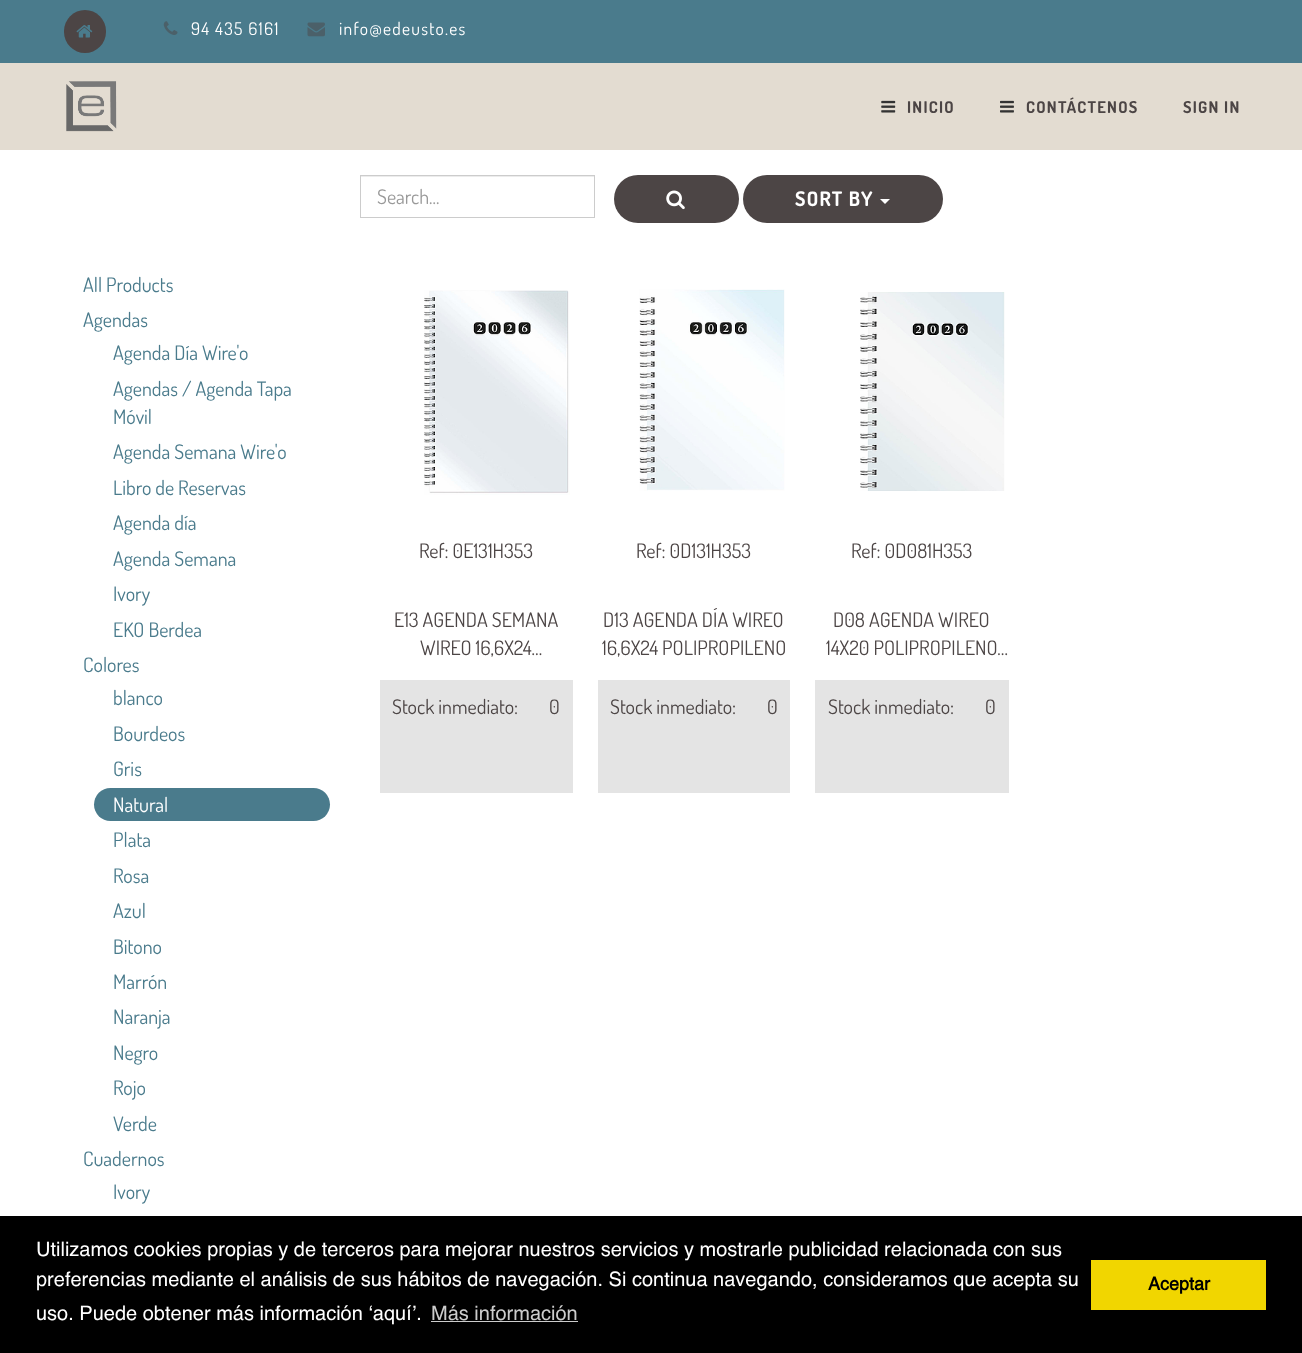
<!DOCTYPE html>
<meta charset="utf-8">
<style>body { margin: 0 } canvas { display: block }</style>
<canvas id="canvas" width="1302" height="1353"></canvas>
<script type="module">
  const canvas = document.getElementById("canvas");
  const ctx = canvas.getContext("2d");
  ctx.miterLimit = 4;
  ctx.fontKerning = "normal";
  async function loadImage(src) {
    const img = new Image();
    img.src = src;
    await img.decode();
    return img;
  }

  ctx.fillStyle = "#ffffff";
  ctx.fillRect(0, 0, 1302, 1353);
  ctx.fillStyle = "#4a7b8c";
  ctx.fillRect(0, 0, 1302, 63);
  ctx.fillStyle = "#4c4545";
  ctx.beginPath();
  ctx.roundRect(64, 10, 42, 43, 21);
  ctx.fill();
  ctx.drawImage(await loadImage("img1.png"), 76, 25, 17, 13);
  ctx.drawImage(await loadImage("img2.png"), 163, 21, 15, 14);
  ctx.letterSpacing = "1.25px";
  ctx.font = "17.5px Dosis";
  ctx.fillStyle = "#ffffff";
  ctx.fillText("94 435 6161", 191, 35);
  ctx.drawImage(await loadImage("img3.png"), 307, 22, 18, 15);
  ctx.fillText("info@edeusto.es", 339, 35);
  ctx.fillStyle = "#e3dcd1";
  ctx.fillRect(0, 63, 1302, 87);
  ctx.drawImage(await loadImage("img4.png"), 66, 81, 51, 51);
  ctx.drawImage(await loadImage("img5.png"), 881, 100, 15, 13);
  ctx.font = "bold 16.25px Dosis";
  ctx.fillStyle = "#4c4545";
  ctx.fillText("INICIO", 907, 113);
  ctx.drawImage(await loadImage("img6.png"), 1000, 100, 14, 13);
  ctx.fillText("CONTÁCTENOS", 1026, 113);
  ctx.fillText("SIGN IN", 1183, 113);
  ctx.fillStyle = "#ececec";
  ctx.fillRect(361, 176, 233, 1);
  ctx.strokeStyle = "#cccccc";
  ctx.strokeRect(360.5, 175.5, 234, 42);
  ctx.letterSpacing = "0px";
  ctx.font = "20px Dosis";
  ctx.fillStyle = "#999999";
  ctx.fillText("Search...", 377, 204);
  ctx.fillStyle = "#4c4545";
  ctx.beginPath();
  ctx.roundRect(614, 175, 125, 48, 24);
  ctx.fill();
  ctx.drawImage(await loadImage("img7.png"), 666, 190, 19, 20);
  ctx.beginPath();
  ctx.roundRect(743, 175, 200, 48, 24);
  ctx.fill();
  ctx.letterSpacing = "1.25px";
  ctx.font = "bold 20px Dosis";
  ctx.fillStyle = "#ffffff";
  ctx.fillText("SORT BY", 795, 206);
  ctx.beginPath();
  ctx.moveTo(880, 199);
  ctx.lineTo(890, 199);
  ctx.lineTo(885, 204);
  ctx.closePath();
  ctx.fill();
  ctx.letterSpacing = "0px";
  ctx.font = "20px Dosis";
  ctx.fillStyle = "#4a7b8c";
  ctx.fillText("All Products", 83, 292);
  ctx.fillText("Agendas", 83, 327);
  ctx.fillText("Agenda Día Wire'o", 113, 360);
  ctx.fillText("Agendas / Agenda Tapa", 113, 396);
  ctx.fillText("Móvil", 113, 424);
  ctx.fillText("Agenda Semana Wire'o", 113, 459);
  ctx.fillText("Libro de Reservas", 113, 495);
  ctx.fillText("Agenda día", 113, 530);
  ctx.fillText("Agenda Semana", 113, 566);
  ctx.fillText("Ivory", 113, 601);
  ctx.fillText("EKO Berdea", 113, 637);
  ctx.fillText("Colores", 83, 672);
  ctx.fillText("blanco", 113, 705);
  ctx.fillText("Bourdeos", 113, 741);
  ctx.fillText("Gris", 113, 776);
  ctx.beginPath();
  ctx.roundRect(94, 788, 236, 33, 16.5);
  ctx.fill();
  ctx.fillStyle = "#ffffff";
  ctx.fillText("Natural", 113, 812);
  ctx.fillStyle = "#4a7b8c";
  ctx.fillText("Plata", 113, 847);
  ctx.fillText("Rosa", 113, 883);
  ctx.fillText("Azul", 113, 918);
  ctx.fillText("Bitono", 113, 954);
  ctx.fillText("Marrón", 113, 989);
  ctx.fillText("Naranja", 113, 1024);
  ctx.fillText("Negro", 113, 1060);
  ctx.fillText("Rojo", 113, 1095);
  ctx.fillText("Verde", 113, 1131);
  ctx.fillText("Cuadernos", 83, 1166);
  ctx.fillText("Ivory", 113, 1199);
  ctx.drawImage(await loadImage("img8.png"), 424, 290, 146, 205);
  ctx.fillStyle = "#4c4545";
  ctx.fillText("Ref: 0E131H353", 419, 558);
  ctx.fillText("E13 AGENDA SEMANA", 394, 627);
  ctx.fillText("WIREO 16,6X24…", 420, 655);
  ctx.fillStyle = "#e4e4e4";
  ctx.fillRect(380, 680, 193, 113);
  ctx.fillStyle = "#4c4545";
  ctx.fillText("Stock inmediato:", 392, 714);
  ctx.fillText("0", 549, 714);
  ctx.drawImage(await loadImage("img9.png"), 639, 289, 146, 202);
  ctx.fillText("Ref: 0D131H353", 636, 558);
  ctx.fillText("D13 AGENDA DÍA WIREO", 603, 627);
  ctx.fillText("16,6X24 POLIPROPILENO", 602, 655);
  ctx.fillStyle = "#e4e4e4";
  ctx.fillRect(598, 680, 192, 113);
  ctx.fillStyle = "#4c4545";
  ctx.fillText("Stock inmediato:", 610, 714);
  ctx.fillText("0", 767, 714);
  ctx.drawImage(await loadImage("img10.png"), 860, 292, 145, 199);
  ctx.fillText("Ref: 0D081H353", 851, 558);
  ctx.fillText("D08 AGENDA WIREO", 833, 627);
  ctx.fillText("14X20 POLIPROPILENO…", 826, 655);
  ctx.fillStyle = "#e4e4e4";
  ctx.fillRect(815, 680, 194, 113);
  ctx.fillStyle = "#4c4545";
  ctx.fillText("Stock inmediato:", 828, 714);
  ctx.fillText("0", 985, 714);
  ctx.fillStyle = "#000000";
  ctx.fillRect(0, 1216, 1302, 137);
  ctx.font = "20px Helvetica";
  ctx.fillStyle = "#ffffff";
  ctx.fillText("Utilizamos cookies propias y de terceros para mejorar nuestros servicios y mostrarle publicidad relacionada con sus", 36, 1256);
  ctx.fillText("preferencias mediante el análisis de sus hábitos de navegación. Si continua navegando, consideramos que acepta su", 36, 1286);
  ctx.fillText("uso. Puede obtener más información ‘aquí’.", 36, 1320);
  ctx.fillStyle = "#cccccc";
  ctx.fillText("Más información", 431, 1320);
  ctx.fillRect(431, 1321, 147, 1);
  ctx.fillStyle = "#f1d600";
  ctx.fillRect(1091, 1260, 175, 50);
  ctx.font = "bold 18px Helvetica";
  ctx.fillStyle = "#000000";
  ctx.fillText("Aceptar", 1148, 1290);
</script>
